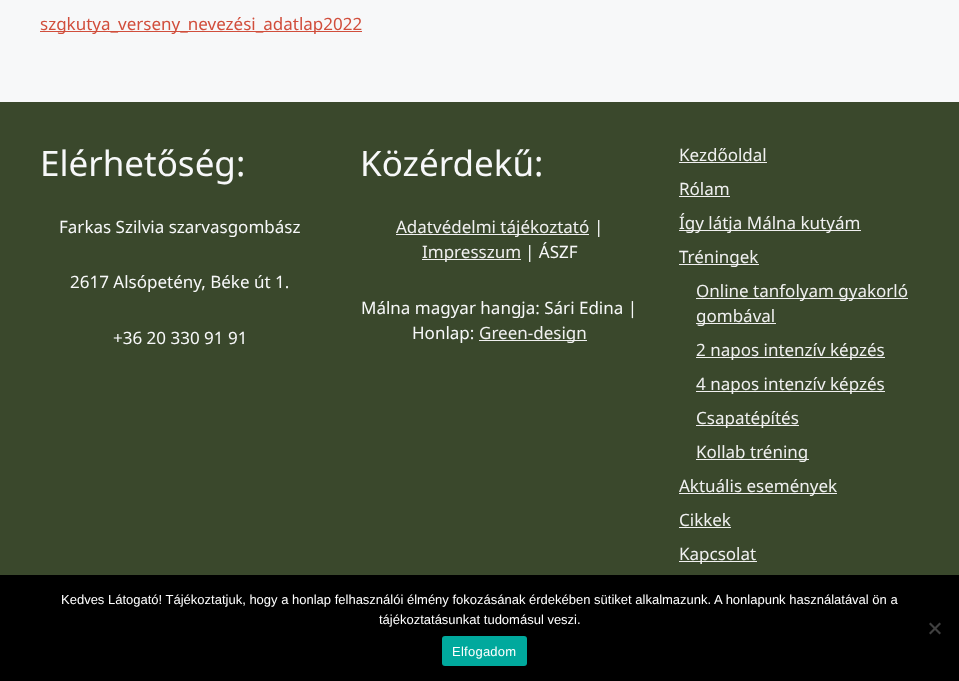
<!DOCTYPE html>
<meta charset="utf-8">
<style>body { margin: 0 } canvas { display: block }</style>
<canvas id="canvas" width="959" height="681"></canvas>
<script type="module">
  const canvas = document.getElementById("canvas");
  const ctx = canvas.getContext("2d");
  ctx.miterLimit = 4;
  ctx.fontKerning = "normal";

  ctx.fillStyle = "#f7f8f9";
  ctx.fillRect(0, 0, 959, 681);
  ctx.fillStyle = "#d14e3c";
  ctx.fillRect(40, 31, 322, 1);
  ctx.font = "17px Noto Sans";
  ctx.fillText("szgkutya_verseny_nevezési_adatlap2022", 40, 30);
  ctx.fillStyle = "#3a482c";
  ctx.fillRect(0, 102, 959, 473);
  ctx.font = "35px Noto Sans";
  ctx.fillStyle = "#f7f8f9";
  ctx.fillText("Elérhetőség:", 40, 176);
  ctx.font = "17px Noto Sans";
  ctx.fillText("Farkas Szilvia szarvasgombász", 59, 233);
  ctx.fillText("2617 Alsópetény, Béke út 1.", 70, 288);
  ctx.fillText("+36 20 330 91 91", 113, 344);
  ctx.font = "35px Noto Sans";
  ctx.fillText("Közérdekű:", 360, 176);
  ctx.fillStyle = "#f0f0f0";
  ctx.fillRect(396, 234, 193, 1);
  ctx.font = "17px Noto Sans";
  ctx.fillText("Adatvédelmi tájékoztató", 396, 233);
  ctx.fillStyle = "#f7f8f9";
  ctx.fillText("|", 594, 233);
  ctx.fillStyle = "#f0f0f0";
  ctx.fillRect(422, 259, 99, 1);
  ctx.fillText("Impresszum", 422, 258);
  ctx.fillStyle = "#f7f8f9";
  ctx.fillText("| ÁSZF", 525, 258);
  ctx.fillText("Málna magyar hangja: Sári Edina |", 361, 314);
  ctx.fillText("Honlap:", 412, 339);
  ctx.fillStyle = "#f0f0f0";
  ctx.fillRect(479, 340, 108, 1);
  ctx.fillText("Green-design", 479, 339);
  ctx.fillText("Kezdőoldal", 679, 161);
  ctx.fillRect(679, 162, 88, 1);
  ctx.fillText("Rólam", 679, 195);
  ctx.fillRect(679, 196, 51, 1);
  ctx.fillRect(679, 230, 182, 1);
  ctx.fillText("Így látja Málna kutyám", 679, 229);
  ctx.fillRect(679, 264, 80, 1);
  ctx.fillText("Tréningek", 679, 263);
  ctx.fillRect(696, 298, 212, 1);
  ctx.fillText("Online tanfolyam gyakorló", 696, 297);
  ctx.fillRect(696, 323, 80, 1);
  ctx.fillText("gombával", 696, 322);
  ctx.fillRect(696, 357, 189, 1);
  ctx.fillText("2 napos intenzív képzés", 696, 356);
  ctx.fillRect(696, 391, 189, 1);
  ctx.fillText("4 napos intenzív képzés", 696, 390);
  ctx.fillRect(696, 425, 103, 1);
  ctx.fillText("Csapatépítés", 696, 424);
  ctx.fillRect(696, 459, 113, 1);
  ctx.fillText("Kollab tréning", 696, 458);
  ctx.fillRect(679, 493, 158, 1);
  ctx.fillText("Aktuális események", 679, 492);
  ctx.fillText("Cikkek", 679, 526);
  ctx.fillRect(679, 527, 52, 1);
  ctx.fillRect(679, 561, 78, 1);
  ctx.fillText("Kapcsolat", 679, 560);
  ctx.fillStyle = "#000000";
  ctx.fillRect(0, 575, 959, 106);
  ctx.font = "13px Liberation Sans";
  ctx.fillStyle = "#ffffff";
  ctx.fillText("Kedves Látogató! Tájékoztatjuk, hogy a honlap felhasználói élmény fokozásának érdekében sütiket alkalmazunk. A honlapunk használatával ön a", 61, 604);
  ctx.fillText("tájékoztatásunkat tudomásul veszi.", 379, 624);
  ctx.fillStyle = "#404040";
  ctx.beginPath();
  ctx.moveTo(939.5, 622.5);
  ctx.lineTo(941, 624);
  ctx.lineTo(930.5, 634.5);
  ctx.lineTo(929, 633);
  ctx.closePath();
  ctx.fill();
  ctx.beginPath();
  ctx.moveTo(929, 624);
  ctx.lineTo(930.5, 622.5);
  ctx.lineTo(941, 633);
  ctx.lineTo(939.5, 634.5);
  ctx.closePath();
  ctx.fill();
  ctx.fillStyle = "#00a99d";
  ctx.beginPath();
  ctx.roundRect(442, 636, 85, 30, 3);
  ctx.fill();
  ctx.letterSpacing = "0.25px";
  ctx.fillStyle = "#ffffff";
  ctx.fillText("Elfogadom", 452, 656);
</script>
